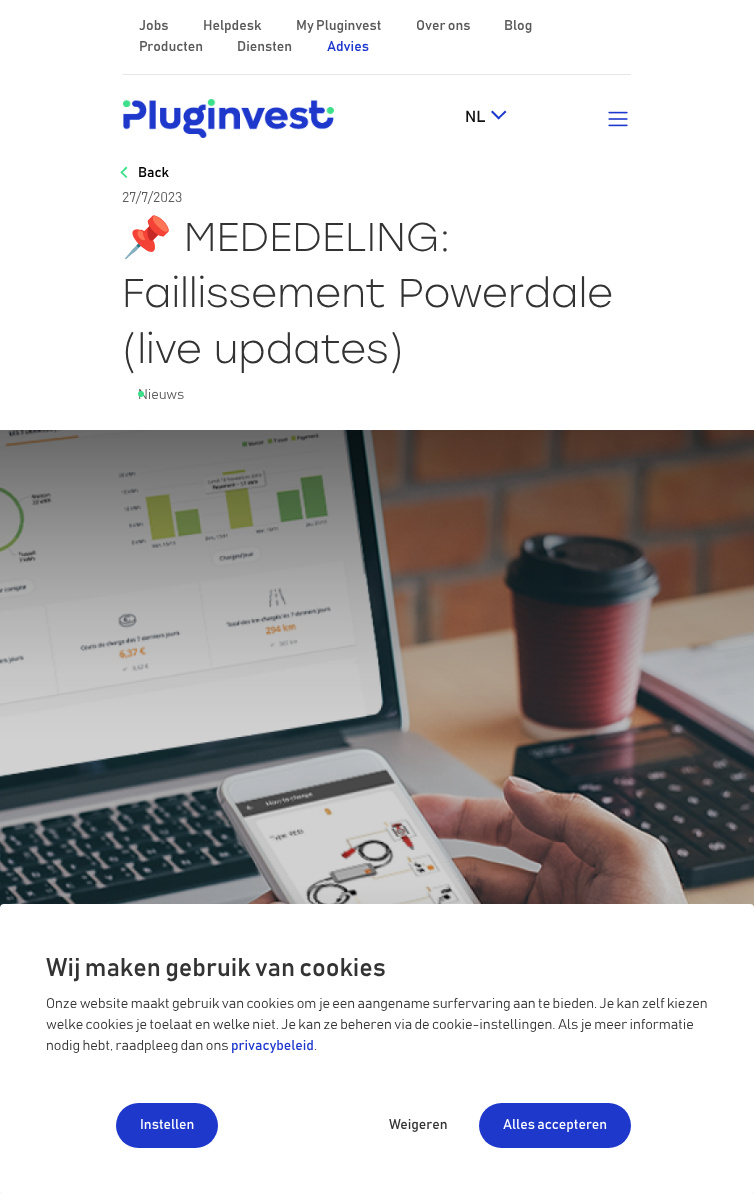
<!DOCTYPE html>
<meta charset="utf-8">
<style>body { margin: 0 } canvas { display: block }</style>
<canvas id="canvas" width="754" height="1194"></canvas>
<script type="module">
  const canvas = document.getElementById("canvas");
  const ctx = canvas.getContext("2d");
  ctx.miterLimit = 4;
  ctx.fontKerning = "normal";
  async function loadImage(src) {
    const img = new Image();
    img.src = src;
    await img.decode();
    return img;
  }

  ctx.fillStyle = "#ffffff";
  ctx.fillRect(0, 0, 754, 1194);
  ctx.font = "500 14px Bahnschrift";
  ctx.fillStyle = "#5a5a5a";
  ctx.fillText("Jobs", 139, 30);
  ctx.fillText("Helpdesk", 203, 30);
  ctx.fillText("My Pluginvest", 296, 30);
  ctx.fillText("Over ons", 416, 30);
  ctx.fillText("Blog", 504, 30);
  ctx.fillText("Producten", 139, 51);
  ctx.fillText("Diensten", 237, 51);
  ctx.fillStyle = "#1f38cc";
  ctx.fillText("Advies", 327, 51);
  ctx.fillStyle = "#e6e6e6";
  ctx.fillRect(123, 74, 508, 1);
  ctx.drawImage(await loadImage("img1.png"), 123, 99, 211, 39);
  ctx.font = "500 16px Bahnschrift";
  ctx.fillStyle = "#111111";
  ctx.fillText("NL", 465, 122);
  ctx.fillStyle = "#1f38cc";
  ctx.beginPath();
  ctx.moveTo(506.5, 112);
  ctx.lineTo(498.5, 119.5);
  ctx.lineTo(497.5, 118);
  ctx.lineTo(505, 110.5);
  ctx.closePath();
  ctx.fill();
  ctx.beginPath();
  ctx.moveTo(500, 118);
  ctx.lineTo(498.5, 119.5);
  ctx.lineTo(491, 112);
  ctx.lineTo(492.5, 110.5);
  ctx.closePath();
  ctx.fill();
  ctx.drawImage(await loadImage("img2.png"), 608, 111, 20, 16);
  ctx.fillStyle = "#3de08a";
  ctx.beginPath();
  ctx.moveTo(126, 178);
  ctx.lineTo(120.5, 172.5);
  ctx.lineTo(121.5, 171);
  ctx.lineTo(127.5, 177);
  ctx.closePath();
  ctx.fill();
  ctx.beginPath();
  ctx.moveTo(121.5, 173.5);
  ctx.lineTo(120.5, 172.5);
  ctx.lineTo(126, 166.5);
  ctx.lineTo(127.5, 168);
  ctx.closePath();
  ctx.fill();
  ctx.font = "500 14px Bahnschrift";
  ctx.fillStyle = "#000000";
  ctx.fillText("Back", 138, 177);
  ctx.font = "300 14px Bahnschrift";
  ctx.fillStyle = "#5a5a5a";
  ctx.fillText("27/7/2023", 122, 202);
  ctx.font = "40px Noto Color Emoji";
  ctx.fillStyle = "#333333";
  ctx.fillText("📌", 122, 251);
  ctx.font = "300 40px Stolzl";
  ctx.fillText("MEDEDELING:", 184, 251);
  ctx.fillText("Faillissement Powerdale", 122, 307);
  ctx.fillText("(live updates)", 122, 363);
  ctx.font = "300 14px Bahnschrift";
  ctx.fillStyle = "#5a5a5a";
  ctx.fillText("Nieuws", 138, 399);
  ctx.fillStyle = "#3de08a";
  ctx.beginPath();
  ctx.arc(141, 394, 3, 0, Math.PI * 2);
  ctx.fill();
  ctx.drawImage(await loadImage("img3.png"), 0, 430, 754, 478);
  ctx.fillStyle = "rgba(0, 0, 0, 0.12)";
  ctx.filter = "blur(16px)";
  ctx.beginPath();
  ctx.roundRect(0, 912, 754, 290, 4);
  ctx.fill();
  ctx.filter = "none";
  ctx.fillStyle = "#ffffff";
  ctx.beginPath();
  ctx.roundRect(0, 904, 754, 290, 4);
  ctx.fill();
  ctx.font = "500 25.25px Bahnschrift";
  ctx.fillStyle = "#333333";
  ctx.fillText("Wij maken gebruik van cookies", 46, 976);
  ctx.font = "300 14px Bahnschrift";
  ctx.fillText("Onze website maakt gebruik van cookies om je een aangename surfervaring aan te bieden. Je kan zelf kiezen", 46, 1008);
  ctx.fillText("welke cookies je toelaat en welke niet. Je kan ze beheren via de cookie-instellingen. Als je meer informatie", 46, 1029);
  ctx.fillText("nodig hebt, raadpleeg dan ons", 46, 1050);
  ctx.font = "14px Bahnschrift";
  ctx.fillStyle = "#1f38cc";
  ctx.fillText("privacybeleid", 231, 1050);
  ctx.font = "300 14px Bahnschrift";
  ctx.fillStyle = "#333333";
  ctx.fillText(".", 314, 1050);
  ctx.fillStyle = "#1f38cc";
  ctx.beginPath();
  ctx.roundRect(116, 1103, 102, 45, 22.5);
  ctx.fill();
  ctx.font = "14px Bahnschrift";
  ctx.fillStyle = "#ffffff";
  ctx.fillText("Instellen", 140, 1129);
  ctx.fillStyle = "#333333";
  ctx.fillText("Weigeren", 389, 1129);
  ctx.fillStyle = "#1f38cc";
  ctx.beginPath();
  ctx.roundRect(479, 1103, 152, 45, 22.5);
  ctx.fill();
  ctx.fillStyle = "#ffffff";
  ctx.fillText("Alles accepteren", 503, 1129);
</script>
